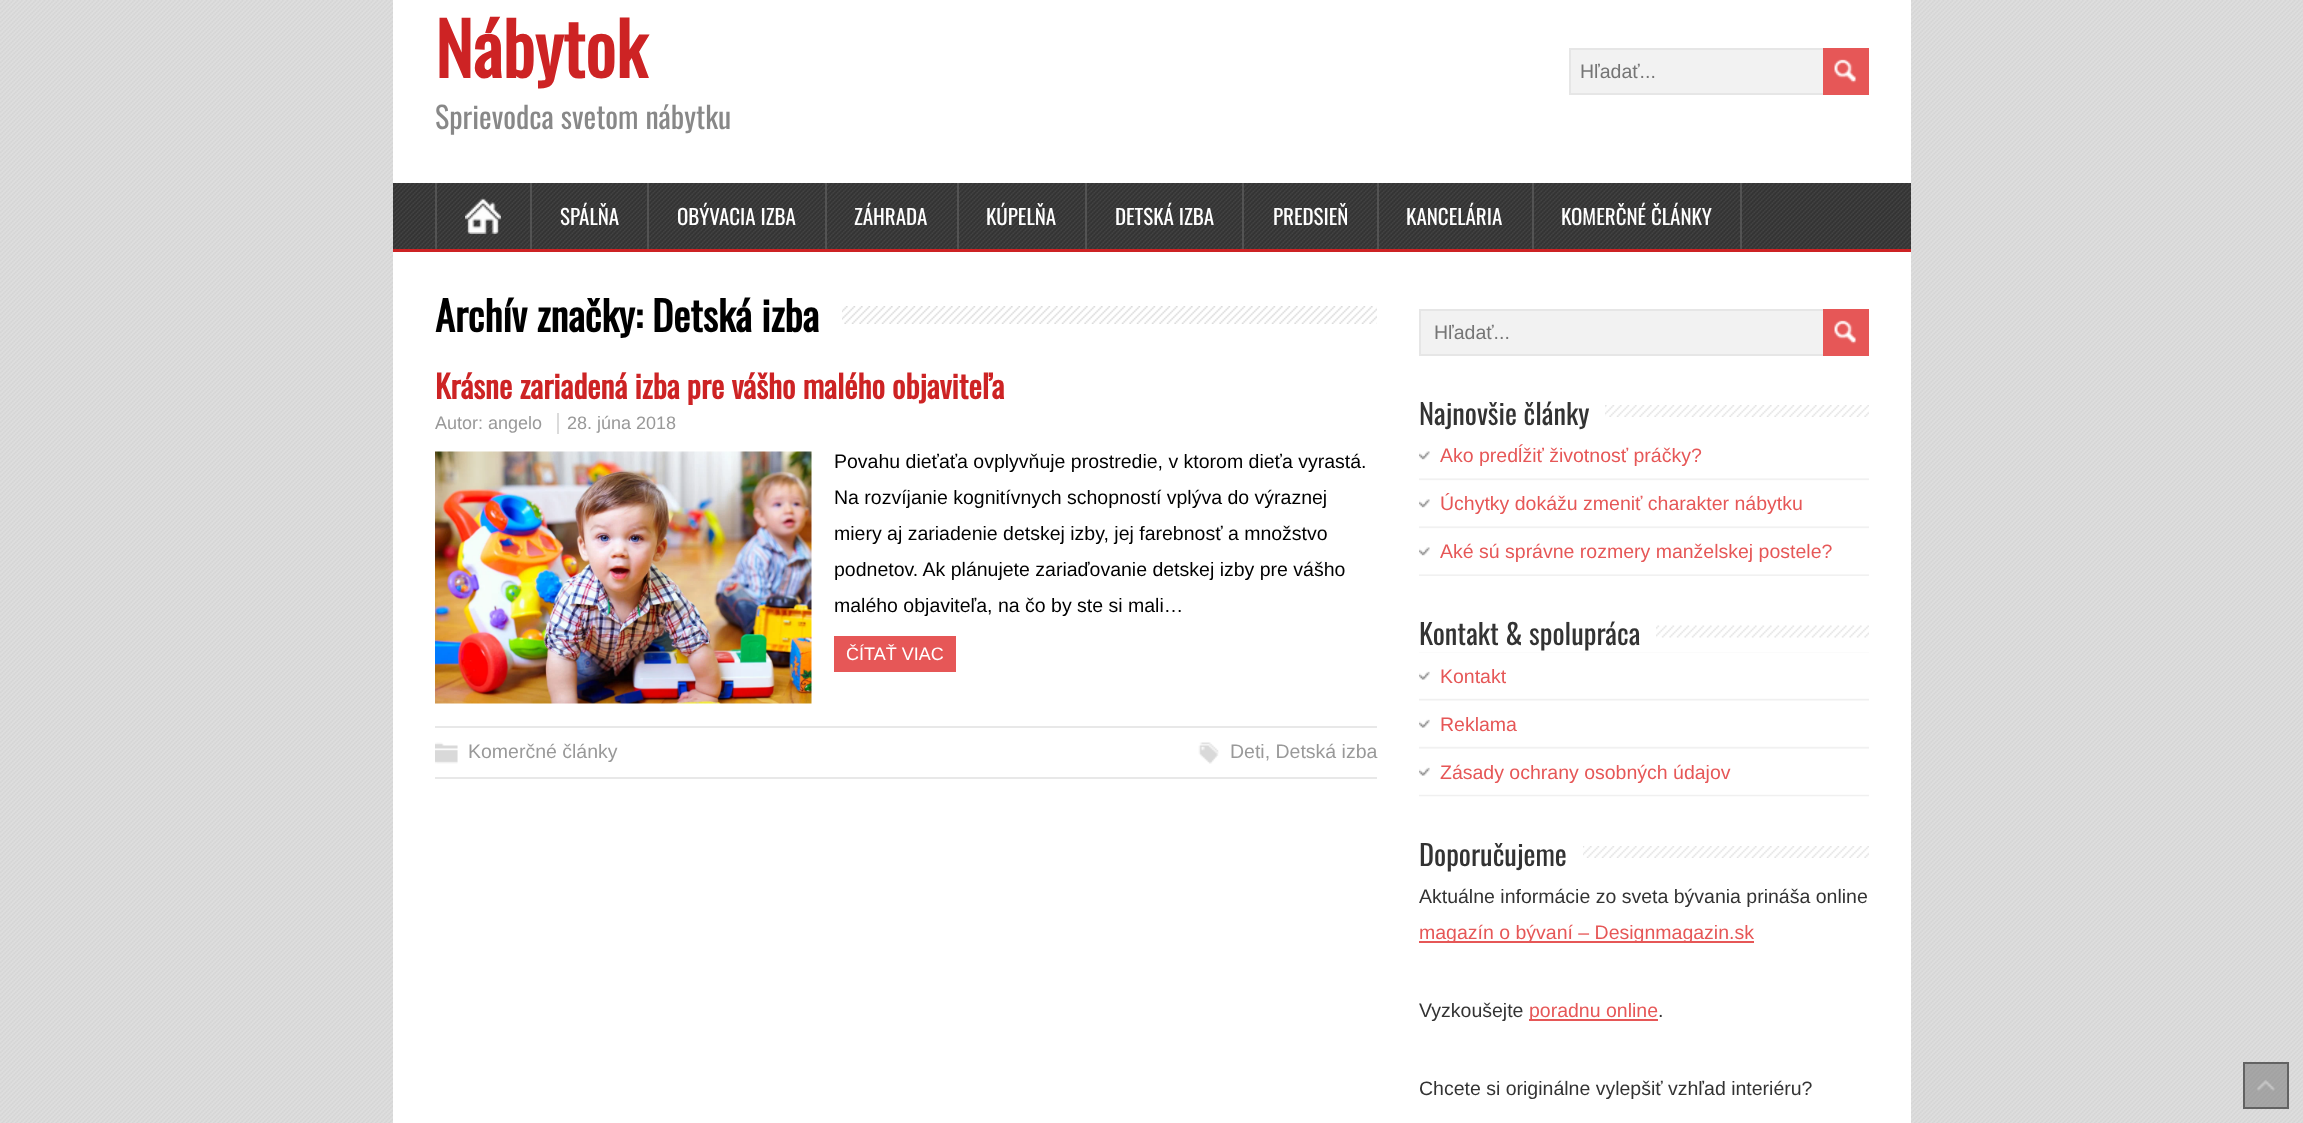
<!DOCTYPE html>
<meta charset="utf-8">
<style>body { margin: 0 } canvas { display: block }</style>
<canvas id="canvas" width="2303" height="1123"></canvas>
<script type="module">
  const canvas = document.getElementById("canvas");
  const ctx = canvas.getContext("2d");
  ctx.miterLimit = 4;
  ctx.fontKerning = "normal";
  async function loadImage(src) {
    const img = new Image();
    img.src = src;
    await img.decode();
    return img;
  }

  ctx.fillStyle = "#dedede";
  ctx.fillRect(0, 0, 2303, 1123);
  ctx.drawImage(await loadImage("img1.png"), 0, 0, 2303, 1123);
  ctx.fillStyle = "#ffffff";
  ctx.fillRect(393, 0, 1518, 183);
  ctx.font = "bold 72px Oswald";
  ctx.fillStyle = "#cd2324";
  ctx.fillText("Nábytok", 435, 78);
  ctx.fillStyle = "#f2f2f2";
  ctx.fillRect(1571, 50, 252, 43);
  ctx.strokeStyle = "#e6e6e6";
  ctx.lineWidth = 2;
  ctx.strokeRect(1570, 49, 298, 45);
  ctx.font = "19.5px Liberation Sans";
  ctx.fillStyle = "#757575";
  ctx.fillText("Hľadať...", 1580, 78);
  ctx.fillStyle = "#e65757";
  ctx.fillRect(1823, 48, 46, 47);
  ctx.drawImage(await loadImage("img2.png"), 1834, 59, 23, 24);
  ctx.font = "30px Oswald";
  ctx.fillStyle = "#888888";
  ctx.fillText("Sprievodca svetom nábytku", 435, 129);
  ctx.fillStyle = "#333333";
  ctx.fillRect(393, 183, 1518, 66);
  ctx.fillStyle = "#cd2324";
  ctx.fillRect(393, 249, 1518, 3);
  ctx.drawImage(await loadImage("img3.png"), 393, 183, 1518, 66);
  ctx.drawImage(await loadImage("img4.png"), 465, 198, 36, 36);
  ctx.fillStyle = "#535353";
  ctx.fillRect(530, 183, 2, 66);
  ctx.fillRect(435, 183, 2, 66);
  ctx.fillRect(647, 183, 2, 66);
  ctx.font = "21px Oswald";
  ctx.fillStyle = "#ffffff";
  ctx.fillText("SPÁLŇA", 560, 225);
  ctx.fillStyle = "#535353";
  ctx.fillRect(825, 183, 2, 66);
  ctx.fillStyle = "#ffffff";
  ctx.fillText("OBÝVACIA IZBA", 677, 225);
  ctx.fillStyle = "#535353";
  ctx.fillRect(957, 183, 2, 66);
  ctx.fillStyle = "#ffffff";
  ctx.fillText("ZÁHRADA", 854, 225);
  ctx.fillStyle = "#535353";
  ctx.fillRect(1085, 183, 2, 66);
  ctx.fillStyle = "#ffffff";
  ctx.fillText("KÚPELŇA", 986, 225);
  ctx.fillStyle = "#535353";
  ctx.fillRect(1242, 183, 2, 66);
  ctx.fillStyle = "#ffffff";
  ctx.fillText("DETSKÁ IZBA", 1115, 225);
  ctx.fillStyle = "#535353";
  ctx.fillRect(1377, 183, 2, 66);
  ctx.fillStyle = "#ffffff";
  ctx.fillText("PREDSIEŇ", 1273, 225);
  ctx.fillStyle = "#535353";
  ctx.fillRect(1532, 183, 2, 66);
  ctx.fillStyle = "#ffffff";
  ctx.fillText("KANCELÁRIA", 1406, 225);
  ctx.fillStyle = "#535353";
  ctx.fillRect(1740, 183, 2, 66);
  ctx.fillStyle = "#ffffff";
  ctx.fillText("KOMERČNÉ ČLÁNKY", 1561, 225);
  ctx.fillRect(393, 252, 1518, 871);
  ctx.drawImage(await loadImage("img5.png"), 842, 306, 535, 18);
  ctx.font = "bold 40.5px Oswald";
  ctx.fillStyle = "#000000";
  ctx.fillText("Archív značky: Detská izba", 435, 332);
  ctx.fillStyle = "#e8e8e8";
  ctx.fillRect(435, 777, 942, 2);
  ctx.font = "bold 31.5px Oswald";
  ctx.fillStyle = "#cd2324";
  ctx.fillText("Krásne zariadená izba pre vášho malého objaviteľa", 435, 399);
  ctx.font = "18px Liberation Sans";
  ctx.fillStyle = "#999999";
  ctx.fillText("Autor: angelo", 435, 429);
  ctx.fillText("28. júna 2018", 567, 429);
  ctx.fillStyle = "#dbdbdb";
  ctx.fillRect(557, 413, 2, 21);
  ctx.drawImage(await loadImage("img6.png"), 435, 451, 377, 253);
  ctx.font = "19.5px Liberation Sans";
  ctx.fillStyle = "#000000";
  ctx.fillText("Povahu dieťaťa ovplyvňuje prostredie, v ktorom dieťa vyrastá.", 834, 468);
  ctx.fillText("Na rozvíjanie kognitívnych schopností vplýva do výraznej", 834, 504);
  ctx.fillText("miery aj zariadenie detskej izby, jej farebnosť a množstvo", 834, 540);
  ctx.fillText("podnetov. Ak plánujete zariaďovanie detskej izby pre vášho", 834, 576);
  ctx.fillText("malého objaviteľa, na čo by ste si mali…", 834, 612);
  ctx.fillStyle = "#e65757";
  ctx.fillRect(834, 636, 122, 36);
  ctx.font = "18px Liberation Sans";
  ctx.fillStyle = "#ffffff";
  ctx.fillText("ČÍTAŤ VIAC", 846, 660);
  ctx.fillStyle = "#e8e8e8";
  ctx.fillRect(435, 726, 942, 2);
  ctx.drawImage(await loadImage("img7.png"), 435, 742, 23, 22);
  ctx.font = "19.5px Liberation Sans";
  ctx.fillStyle = "#999999";
  ctx.fillText("Komerčné články", 468, 758);
  ctx.drawImage(await loadImage("img8.png"), 1198, 742, 21, 22);
  ctx.fillText("Deti, Detská izba", 1230, 758);
  ctx.fillStyle = "#f2f2f2";
  ctx.fillRect(1421, 311, 402, 43);
  ctx.strokeRect(1420, 310, 447, 45);
  ctx.fillStyle = "#757575";
  ctx.fillText("Hľadať...", 1434, 339);
  ctx.fillStyle = "#e65757";
  ctx.fillRect(1823, 309, 46, 47);
  ctx.drawImage(await loadImage("img2.png"), 1834, 320, 23, 24);
  ctx.drawImage(await loadImage("img9.png"), 1605, 405, 264, 12);
  ctx.font = "28.5px Oswald";
  ctx.fillStyle = "#333333";
  ctx.fillText("Najnovšie články", 1419, 425);
  ctx.drawImage(await loadImage("img10.png"), 1419, 478, 450, 98);
  ctx.drawImage(await loadImage("img11.png"), 1419, 451, 11, 9);
  ctx.font = "19.5px Liberation Sans";
  ctx.fillStyle = "#e65757";
  ctx.fillText("Ako predĺžiť životnosť práčky?", 1440, 462);
  ctx.drawImage(await loadImage("img11.png"), 1419, 499, 11, 9);
  ctx.fillText("Úchytky dokážu zmeniť charakter nábytku", 1440, 510);
  ctx.drawImage(await loadImage("img11.png"), 1419, 547, 11, 9);
  ctx.fillText("Aké sú správne rozmery manželskej postele?", 1440, 558);
  ctx.drawImage(await loadImage("img12.png"), 1656, 625, 213, 13);
  ctx.font = "28.5px Oswald";
  ctx.fillStyle = "#333333";
  ctx.fillText("Kontakt & spolupráca", 1419, 645);
  ctx.drawImage(await loadImage("img13.png"), 1419, 652, 450, 145);
  ctx.drawImage(await loadImage("img14.png"), 1419, 671, 11, 9);
  ctx.font = "19.5px Liberation Sans";
  ctx.fillStyle = "#e65757";
  ctx.fillText("Kontakt", 1440, 683);
  ctx.drawImage(await loadImage("img14.png"), 1419, 719, 11, 9);
  ctx.fillText("Reklama", 1440, 731);
  ctx.drawImage(await loadImage("img14.png"), 1419, 767, 11, 9);
  ctx.fillText("Zásady ochrany osobných údajov", 1440, 779);
  ctx.drawImage(await loadImage("img15.png"), 1583, 846, 286, 12);
  ctx.font = "28.5px Oswald";
  ctx.fillStyle = "#333333";
  ctx.fillText("Doporučujeme", 1419, 866);
  ctx.font = "19.5px Liberation Sans";
  ctx.fillText("Aktuálne informácie zo sveta bývania prináša online", 1419, 903);
  ctx.fillStyle = "#e65757";
  ctx.fillRect(1419, 941, 335, 2);
  ctx.fillText("magazín o bývaní – Designmagazin.sk", 1419, 939);
  ctx.fillStyle = "#333333";
  ctx.fillText("Vyzkoušejte", 1419, 1017);
  ctx.fillStyle = "#e65757";
  ctx.fillRect(1529, 1019, 129, 2);
  ctx.fillText("poradnu online", 1529, 1017);
  ctx.fillStyle = "#333333";
  ctx.fillText(".", 1658, 1017);
  ctx.fillText("Chcete si originálne vylepšiť vzhľad interiéru?", 1419, 1095);
  ctx.fillStyle = "rgba(85, 85, 85, 0.4)";
  ctx.fillRect(2243, 1062, 46, 47);
  ctx.drawImage(await loadImage("img16.png"), 2257, 1080, 18, 11);
  ctx.strokeStyle = "rgba(0, 0, 0, 0.4)";
  ctx.strokeRect(2244, 1063, 44, 45);
</script>
